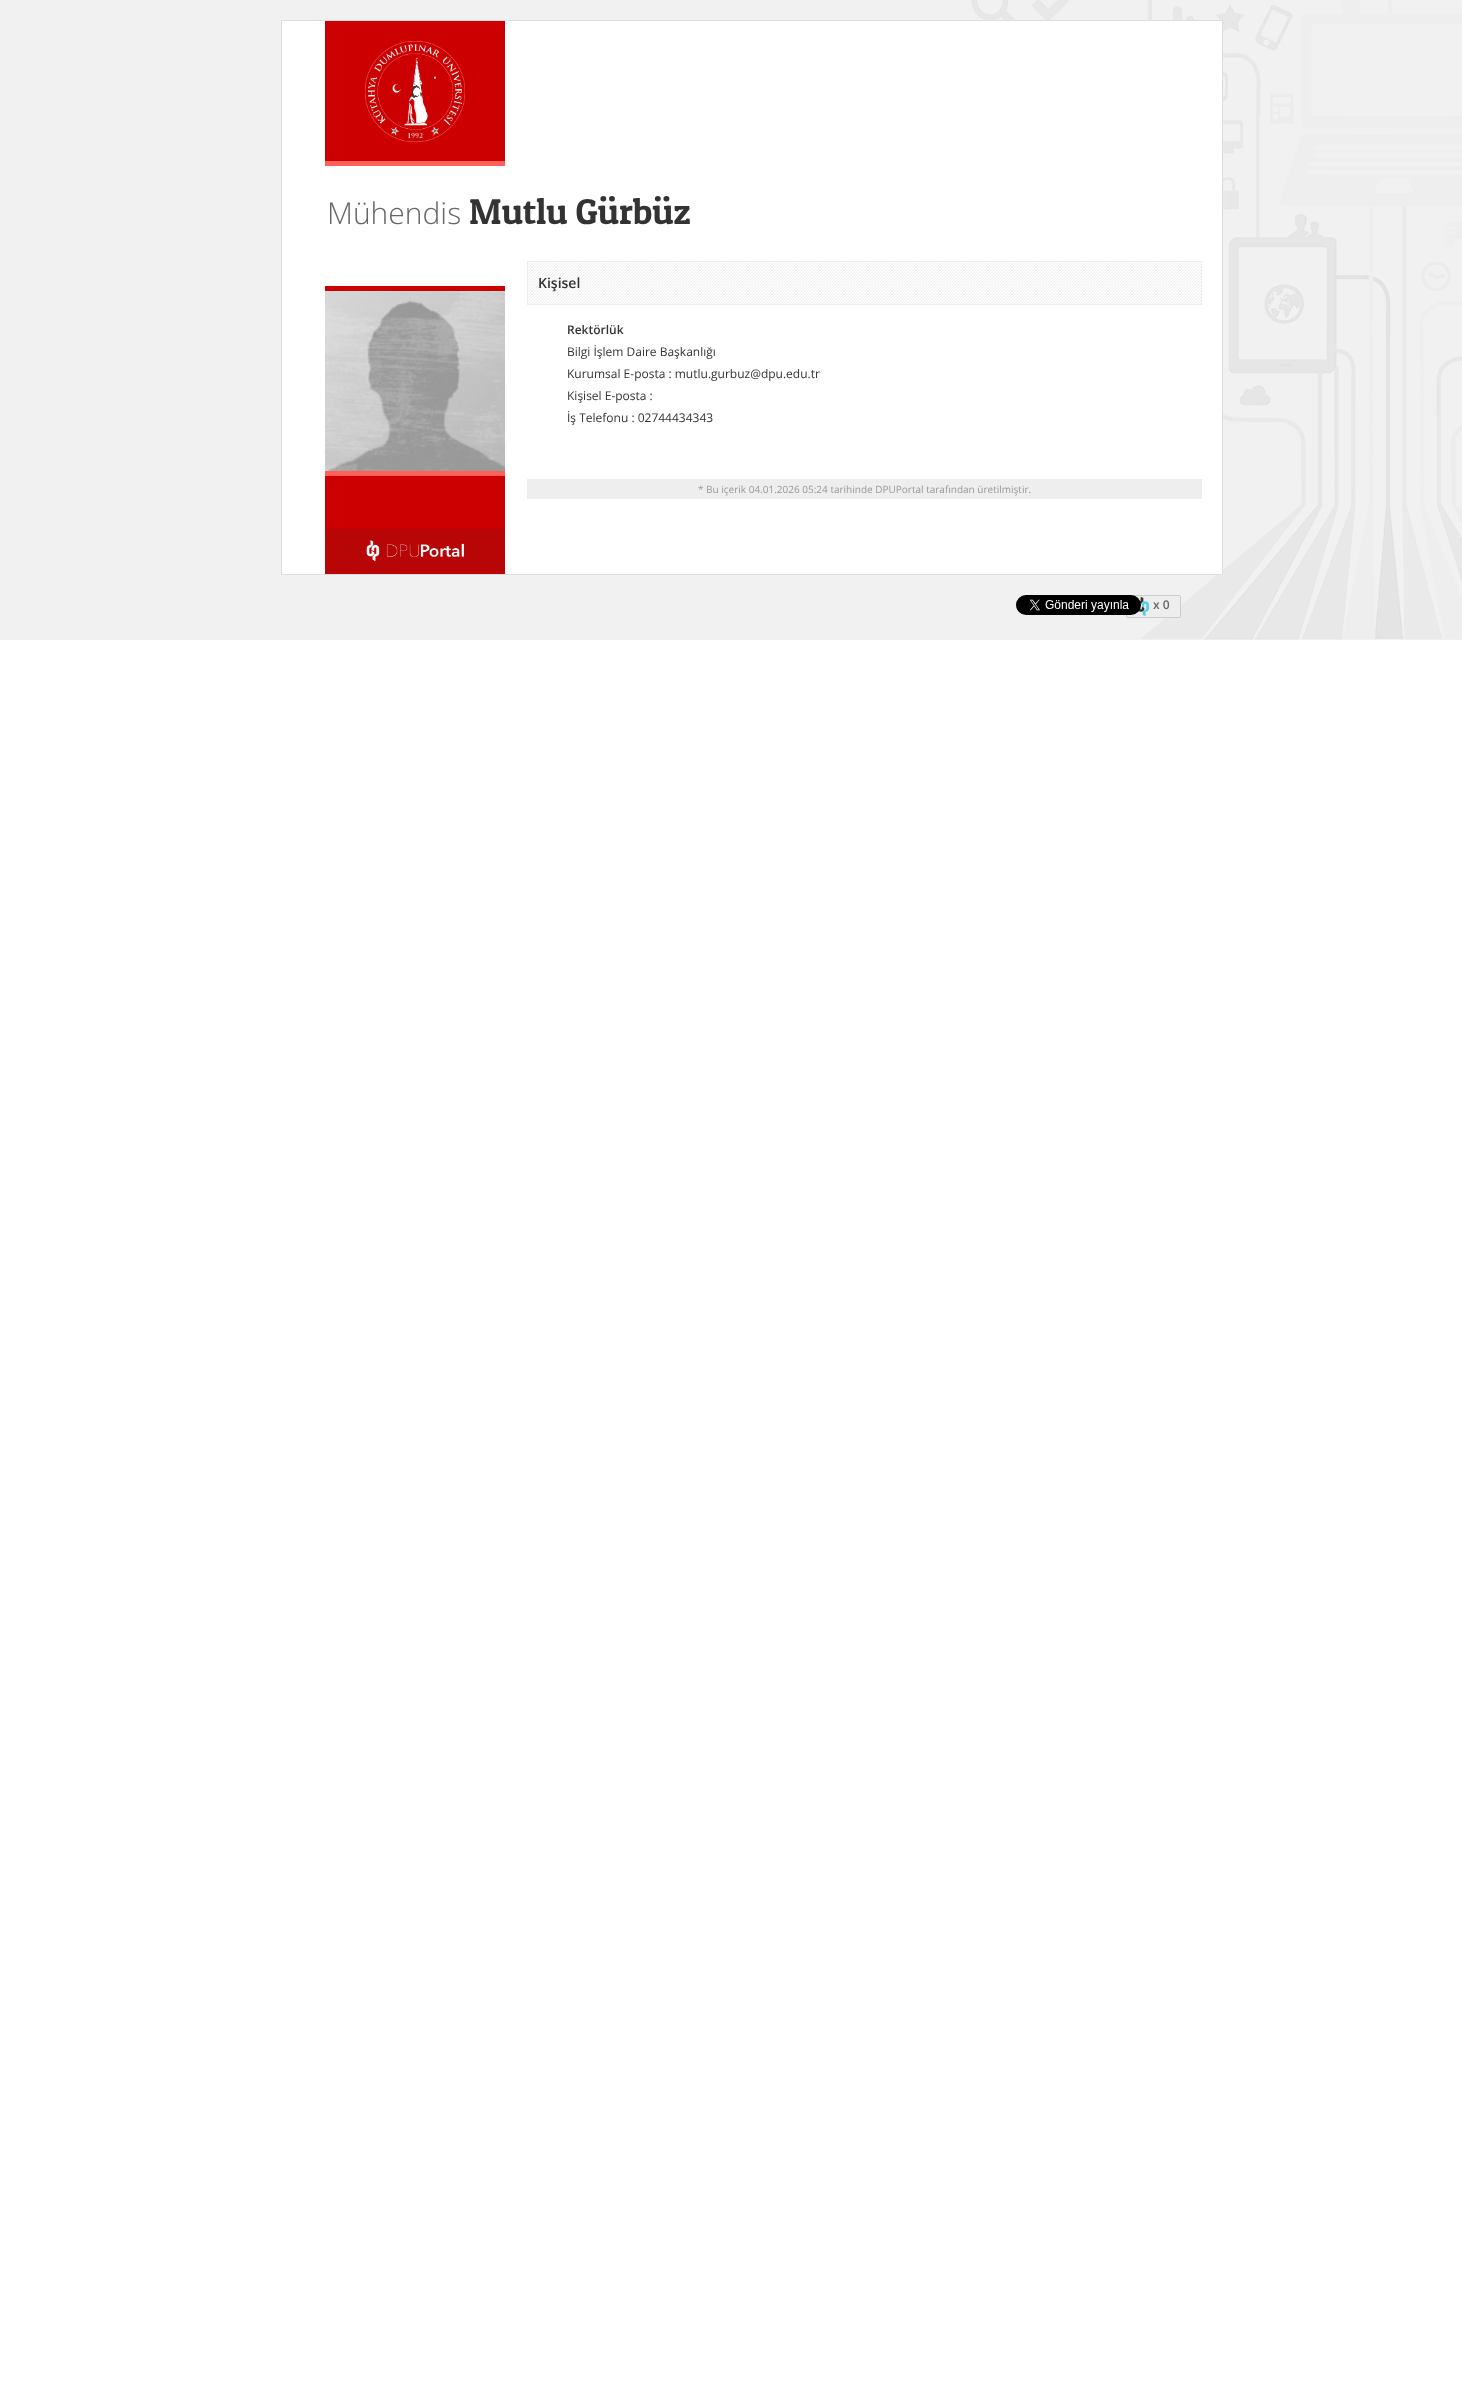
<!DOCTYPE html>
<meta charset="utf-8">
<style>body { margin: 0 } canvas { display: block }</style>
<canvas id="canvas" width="1462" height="2389"></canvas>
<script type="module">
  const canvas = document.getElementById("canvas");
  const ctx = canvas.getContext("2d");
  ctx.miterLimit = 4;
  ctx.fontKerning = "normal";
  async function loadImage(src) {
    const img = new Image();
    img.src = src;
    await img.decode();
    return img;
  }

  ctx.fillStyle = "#ffffff";
  ctx.fillRect(0, 0, 1462, 2389);
  ctx.fillStyle = "#f1f1f1";
  ctx.fillRect(0, 0, 1462, 640);
  ctx.drawImage(await loadImage("img1.png"), 971, 0, 491, 640);
  ctx.fillStyle = "#ffffff";
  ctx.beginPath();
  ctx.rect(281.5, 20.5, 941, 554);
  ctx.fill();
  ctx.strokeStyle = "#dddddd";
  ctx.stroke();
  ctx.fillStyle = "#cc0000";
  ctx.fillRect(325, 21, 180, 140);
  ctx.fillStyle = "#ff605c";
  ctx.fillRect(325, 161, 180, 5);
  ctx.drawImage(await loadImage("img2.png"), 365, 41, 100, 101);
  ctx.fillStyle = "#cc0000";
  ctx.fillRect(325, 286, 180, 243);
  ctx.drawImage(await loadImage("img3.png"), 325, 291, 180, 180);
  ctx.fillStyle = "#ff605c";
  ctx.fillRect(325, 471, 180, 5);
  ctx.fillStyle = "#b80606";
  ctx.fillRect(325, 529, 180, 45);
  ctx.drawImage(await loadImage("img4.png"), 366, 540, 98, 22);
  ctx.font = "300 30px Open Sans";
  ctx.fillStyle = "#666666";
  ctx.fillText("Mühendis", 327, 224);
  ctx.font = "36px Patua One";
  ctx.fillStyle = "#333333";
  ctx.fillText("Mutlu Gürbüz", 469, 224);
  ctx.drawImage(await loadImage("img5.png"), 528, 262, 673, 42);
  ctx.strokeStyle = "#eeeeee";
  ctx.strokeRect(527.5, 261.5, 674, 43);
  ctx.font = "600 14px Open Sans";
  ctx.fillText("Kişisel", 538, 288);
  ctx.font = "600 12px Open Sans";
  ctx.fillText("Rektörlük", 567, 334);
  ctx.font = "12px Open Sans";
  ctx.fillText("Bilgi İşlem Daire Başkanlığı", 567, 356);
  ctx.fillText("Kurumsal E-posta : mutlu.gurbuz@dpu.edu.tr", 567, 378);
  ctx.fillText("Kişisel E-posta :", 567, 400);
  ctx.fillText("İş Telefonu : 02744434343", 567, 422);
  ctx.fillStyle = "#eeeeee";
  ctx.fillRect(527, 479, 675, 20);
  ctx.font = "10px Open Sans";
  ctx.fillStyle = "#999999";
  ctx.fillText("* Bu içerik 04.01.2026 05:24 tarihinde DPUPortal tarafından üretilmiştir.", 698, 493);
  ctx.fillStyle = "#eeeeee";
  ctx.beginPath();
  ctx.roundRect(1126, 595, 55, 23, 2);
  ctx.fill();
  ctx.drawImage(await loadImage("img7.png"), 1138, 596, 11, 21);
  ctx.beginPath();
  ctx.roundRect(1126.5, 595.5, 54, 22, 1.5);
  ctx.strokeStyle = "#cccccc";
  ctx.stroke();
  ctx.drawImage(await loadImage("img6.png"), 1016, 595, 125, 20);
  ctx.font = "600 12px Open Sans";
  ctx.fillStyle = "#666666";
  ctx.fillText("x 0", 1153, 609);
</script>
